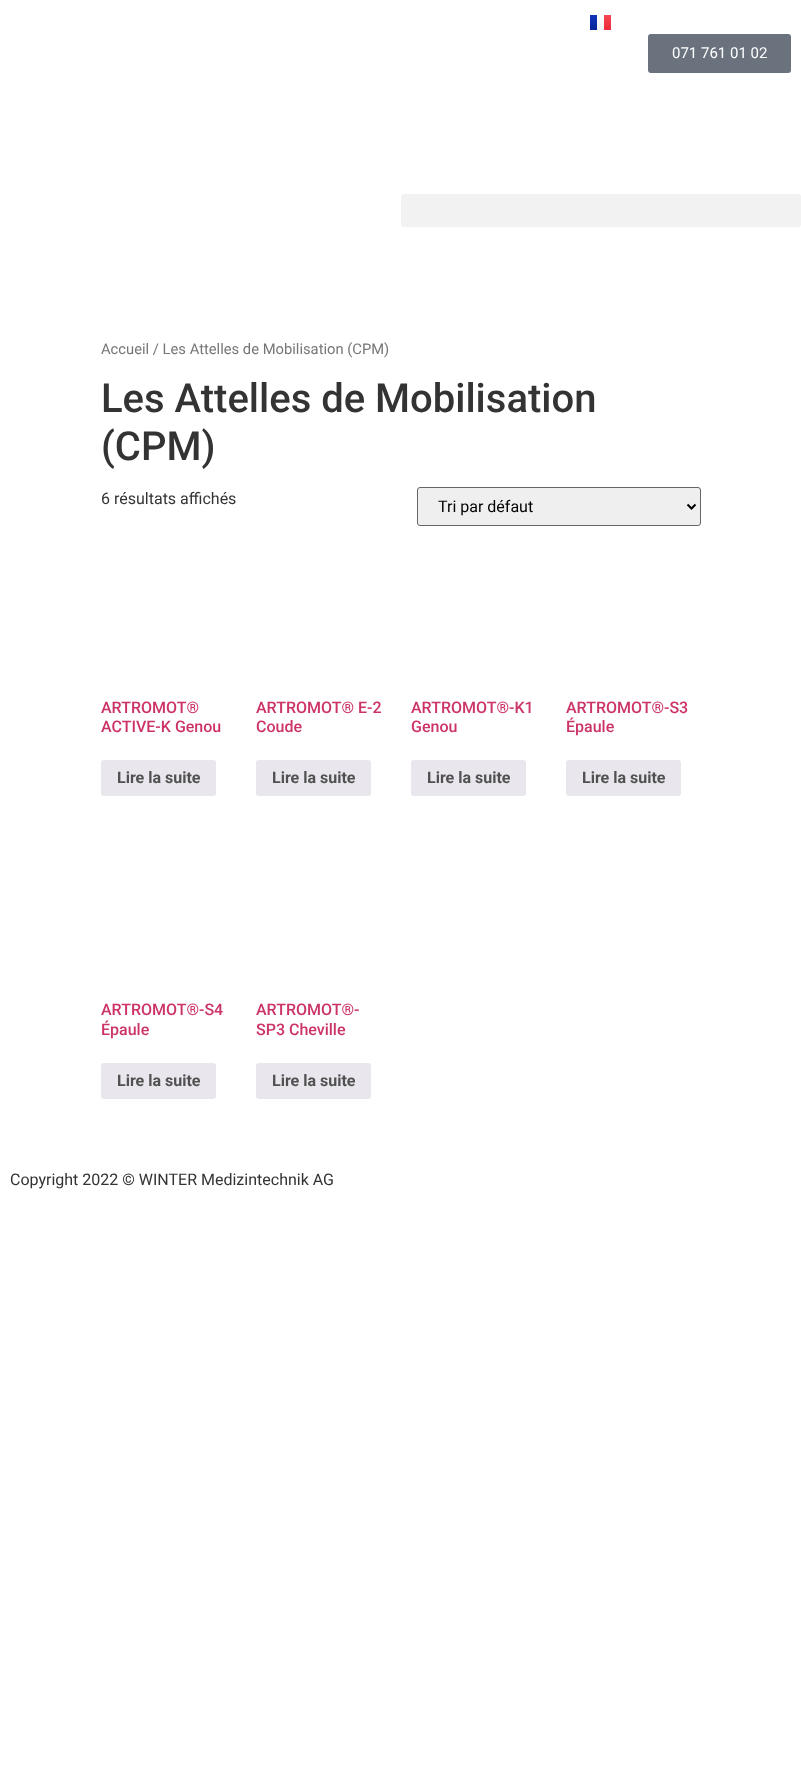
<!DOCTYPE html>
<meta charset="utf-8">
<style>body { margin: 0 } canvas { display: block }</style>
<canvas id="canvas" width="801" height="1784"></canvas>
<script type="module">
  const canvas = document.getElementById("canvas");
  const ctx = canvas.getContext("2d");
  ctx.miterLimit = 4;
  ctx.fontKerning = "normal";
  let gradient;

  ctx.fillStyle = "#ffffff";
  ctx.fillRect(0, 0, 801, 1784);
  gradient = ctx.createLinearGradient(594, 15, 594, 30);
  gradient.addColorStop(0, "#1035bb");
  gradient.addColorStop(1, "#042396");
  ctx.fillStyle = gradient;
  ctx.fillRect(590, 15, 7, 15);
  gradient = ctx.createLinearGradient(601, 15, 601, 30);
  gradient.addColorStop(0, "#ffffff");
  gradient.addColorStop(1, "#f0f0f0");
  ctx.fillStyle = gradient;
  ctx.fillRect(597, 15, 7, 15);
  gradient = ctx.createLinearGradient(606, 15, 606, 30);
  gradient.addColorStop(0, "#f44653");
  gradient.addColorStop(1, "#ee2a39");
  ctx.fillStyle = gradient;
  ctx.fillRect(604, 15, 7, 15);
  ctx.fillStyle = "#69727d";
  ctx.beginPath();
  ctx.roundRect(648, 34, 143, 39, 3);
  ctx.fill();
  ctx.font = "15px Roboto";
  ctx.fillStyle = "#ffffff";
  ctx.fillText("071 761 01 02", 672, 58);
  ctx.fillStyle = "#f2f2f2";
  ctx.beginPath();
  ctx.roundRect(401, 194, 400, 33, 3);
  ctx.fill();
  ctx.font = "14.75px Roboto";
  ctx.fillStyle = "#767676";
  ctx.fillText("Accueil / Les Attelles de Mobilisation (CPM)", 101, 354);
  ctx.font = "500 40px Roboto";
  ctx.fillStyle = "#333333";
  ctx.fillText("Les Attelles de Mobilisation", 101, 412);
  ctx.fillText("(CPM)", 101, 460);
  ctx.font = "16px Roboto";
  ctx.fillText("6 résultats affichés", 101, 504);
  ctx.fillStyle = "#efefef";
  ctx.beginPath();
  ctx.roundRect(417.5, 487.5, 283, 38, 2.5);
  ctx.fill();
  ctx.strokeStyle = "#666666";
  ctx.stroke();
  ctx.beginPath();
  ctx.moveTo(687.5, 504.5);
  ctx.lineTo(691.5, 508.5);
  ctx.lineTo(695.5, 504.5);
  ctx.strokeStyle = "#000000";
  ctx.lineWidth = 2;
  ctx.stroke();
  ctx.fillStyle = "#000000";
  ctx.fillText("Tri par défaut", 438, 512);
  ctx.font = "500 16px Roboto";
  ctx.fillStyle = "#cc3366";
  ctx.fillText("ARTROMOT®", 101, 713);
  ctx.fillText("ACTIVE-K Genou", 101, 732);
  ctx.fillStyle = "#e9e6ed";
  ctx.beginPath();
  ctx.roundRect(101, 760, 115, 36, 3);
  ctx.fill();
  ctx.font = "bold 16px Roboto";
  ctx.fillStyle = "#515151";
  ctx.fillText("Lire la suite", 117, 783);
  ctx.font = "500 16px Roboto";
  ctx.fillStyle = "#cc3366";
  ctx.fillText("ARTROMOT® E-2", 256, 713);
  ctx.fillText("Coude", 256, 732);
  ctx.fillStyle = "#e9e6ed";
  ctx.beginPath();
  ctx.roundRect(256, 760, 115, 36, 3);
  ctx.fill();
  ctx.font = "bold 16px Roboto";
  ctx.fillStyle = "#515151";
  ctx.fillText("Lire la suite", 272, 783);
  ctx.font = "500 16px Roboto";
  ctx.fillStyle = "#cc3366";
  ctx.fillText("ARTROMOT®-K1", 411, 713);
  ctx.fillText("Genou", 411, 732);
  ctx.fillStyle = "#e9e6ed";
  ctx.beginPath();
  ctx.roundRect(411, 760, 115, 36, 3);
  ctx.fill();
  ctx.font = "bold 16px Roboto";
  ctx.fillStyle = "#515151";
  ctx.fillText("Lire la suite", 427, 783);
  ctx.font = "500 16px Roboto";
  ctx.fillStyle = "#cc3366";
  ctx.fillText("ARTROMOT®-S3", 566, 713);
  ctx.fillText("Épaule", 566, 732);
  ctx.fillStyle = "#e9e6ed";
  ctx.beginPath();
  ctx.roundRect(566, 760, 115, 36, 3);
  ctx.fill();
  ctx.font = "bold 16px Roboto";
  ctx.fillStyle = "#515151";
  ctx.fillText("Lire la suite", 582, 783);
  ctx.font = "500 16px Roboto";
  ctx.fillStyle = "#cc3366";
  ctx.fillText("ARTROMOT®-S4", 101, 1015);
  ctx.fillText("Épaule", 101, 1035);
  ctx.fillStyle = "#e9e6ed";
  ctx.beginPath();
  ctx.roundRect(101, 1063, 115, 36, 3);
  ctx.fill();
  ctx.font = "bold 16px Roboto";
  ctx.fillStyle = "#515151";
  ctx.fillText("Lire la suite", 117, 1086);
  ctx.font = "500 16px Roboto";
  ctx.fillStyle = "#cc3366";
  ctx.fillText("ARTROMOT®-", 256, 1015);
  ctx.fillText("SP3 Cheville", 256, 1035);
  ctx.fillStyle = "#e9e6ed";
  ctx.beginPath();
  ctx.roundRect(256, 1063, 115, 36, 3);
  ctx.fill();
  ctx.font = "bold 16px Roboto";
  ctx.fillStyle = "#515151";
  ctx.fillText("Lire la suite", 272, 1086);
  ctx.font = "16px Roboto";
  ctx.fillStyle = "#333333";
  ctx.fillText("Copyright 2022 © WINTER Medizintechnik AG", 10, 1185);
</script>
